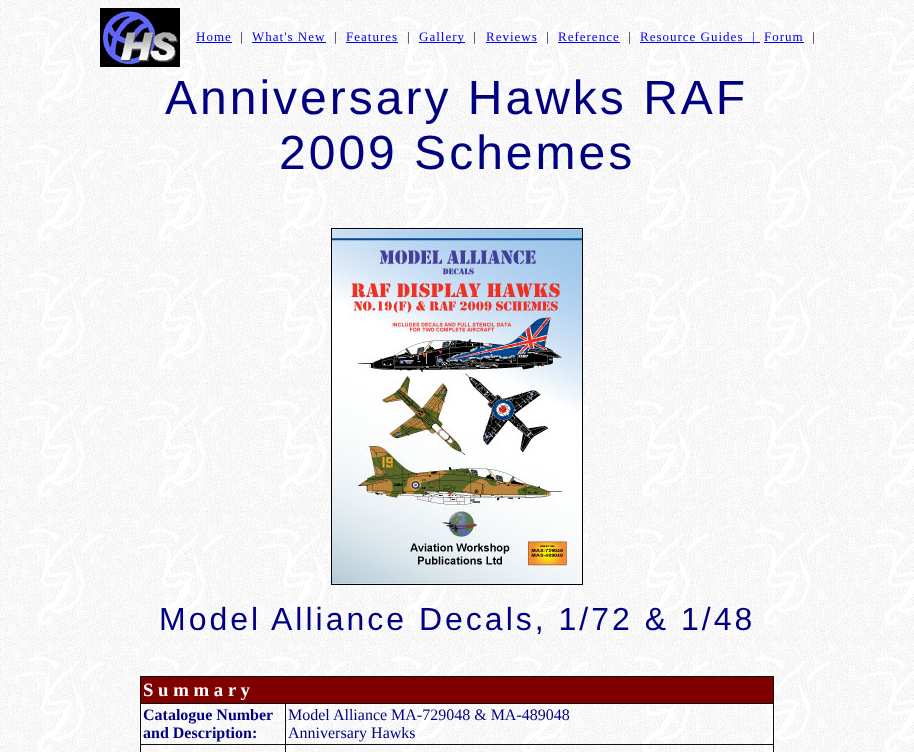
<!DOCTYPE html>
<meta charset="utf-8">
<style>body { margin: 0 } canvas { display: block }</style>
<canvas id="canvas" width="914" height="752"></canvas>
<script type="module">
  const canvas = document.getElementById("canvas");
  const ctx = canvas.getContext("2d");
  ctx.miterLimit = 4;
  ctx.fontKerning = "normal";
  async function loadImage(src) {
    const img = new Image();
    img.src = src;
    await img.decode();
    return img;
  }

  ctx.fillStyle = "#ffffff";
  ctx.fillRect(0, 0, 914, 752);
  ctx.drawImage(await loadImage("img1.png"), 0, 0, 914, 752);
  ctx.drawImage(await loadImage("img2.png"), 100, 8, 80, 59);
  ctx.letterSpacing = "1px";
  ctx.font = "13px Liberation Serif";
  ctx.fillStyle = "#0000ee";
  ctx.fillText("Home", 196, 41);
  ctx.fillRect(196, 42, 36, 1);
  ctx.fillStyle = "#000000";
  ctx.fillText("|", 240, 41);
  ctx.fillStyle = "#0000ee";
  ctx.fillText("What's New", 252, 41);
  ctx.fillRect(252, 42, 74, 1);
  ctx.fillStyle = "#000000";
  ctx.fillText("|", 334, 41);
  ctx.fillStyle = "#0000ee";
  ctx.fillText("Features", 346, 41);
  ctx.fillRect(346, 42, 52, 1);
  ctx.fillStyle = "#000000";
  ctx.fillText("|", 407, 41);
  ctx.fillStyle = "#0000ee";
  ctx.fillRect(419, 42, 46, 1);
  ctx.fillText("Gallery", 419, 41);
  ctx.fillStyle = "#000000";
  ctx.fillText("|", 473, 41);
  ctx.fillStyle = "#0000ee";
  ctx.fillText("Reviews", 486, 41);
  ctx.fillRect(486, 42, 51, 1);
  ctx.fillStyle = "#000000";
  ctx.fillText("|", 546, 41);
  ctx.fillStyle = "#0000ee";
  ctx.fillText("Reference", 558, 41);
  ctx.fillRect(558, 42, 62, 1);
  ctx.fillStyle = "#000000";
  ctx.fillText("|", 628, 41);
  ctx.fillStyle = "#0000ee";
  ctx.fillRect(640, 42, 120, 1);
  ctx.fillText("Resource Guides  |", 640, 41);
  ctx.fillText("Forum", 764, 41);
  ctx.fillRect(764, 42, 40, 1);
  ctx.fillStyle = "#000000";
  ctx.fillText("|", 812, 41);
  ctx.letterSpacing = "3px";
  ctx.font = "48px Liberation Sans";
  ctx.fillStyle = "#000080";
  ctx.fillText("Anniversary Hawks RAF", 165, 114);
  ctx.fillText("2009 Schemes", 279, 169);
  ctx.strokeStyle = "#000000";
  ctx.strokeRect(331.5, 228.5, 251, 356);
  ctx.drawImage(await loadImage("img3.png"), 332, 229, 250, 355);
  ctx.font = "32px Liberation Sans";
  ctx.fillText("Model", 159, 630);
  ctx.fillText("Alliance Decals, 1/72 & 1/48", 271, 630);
  ctx.fillStyle = "#111111";
  ctx.fillRect(140, 676, 634, 1);
  ctx.fillRect(773, 676, 1, 76);
  ctx.fillRect(140, 676, 1, 76);
  ctx.fillStyle = "#800000";
  ctx.fillRect(141, 677, 632, 26);
  ctx.letterSpacing = "0px";
  ctx.font = "bold 18.75px Liberation Serif";
  ctx.fillStyle = "#ffffff";
  ctx.fillText("S u m m a r y", 143, 696);
  ctx.fillStyle = "#111111";
  ctx.fillRect(285, 703, 489, 1);
  ctx.fillRect(285, 744, 489, 1);
  ctx.fillRect(285, 744, 1, 8);
  ctx.fillRect(140, 744, 146, 1);
  ctx.fillRect(285, 703, 1, 42);
  ctx.fillRect(140, 703, 146, 1);
  ctx.font = "bold 16px Liberation Serif";
  ctx.fillStyle = "#000080";
  ctx.fillText("Catalogue Number", 143, 720);
  ctx.fillText("and Description:", 143, 738);
  ctx.font = "16px Liberation Serif";
  ctx.fillText("Model Alliance MA-729048 & MA-489048", 288, 720);
  ctx.fillText("Anniversary Hawks", 288, 738);
</script>
